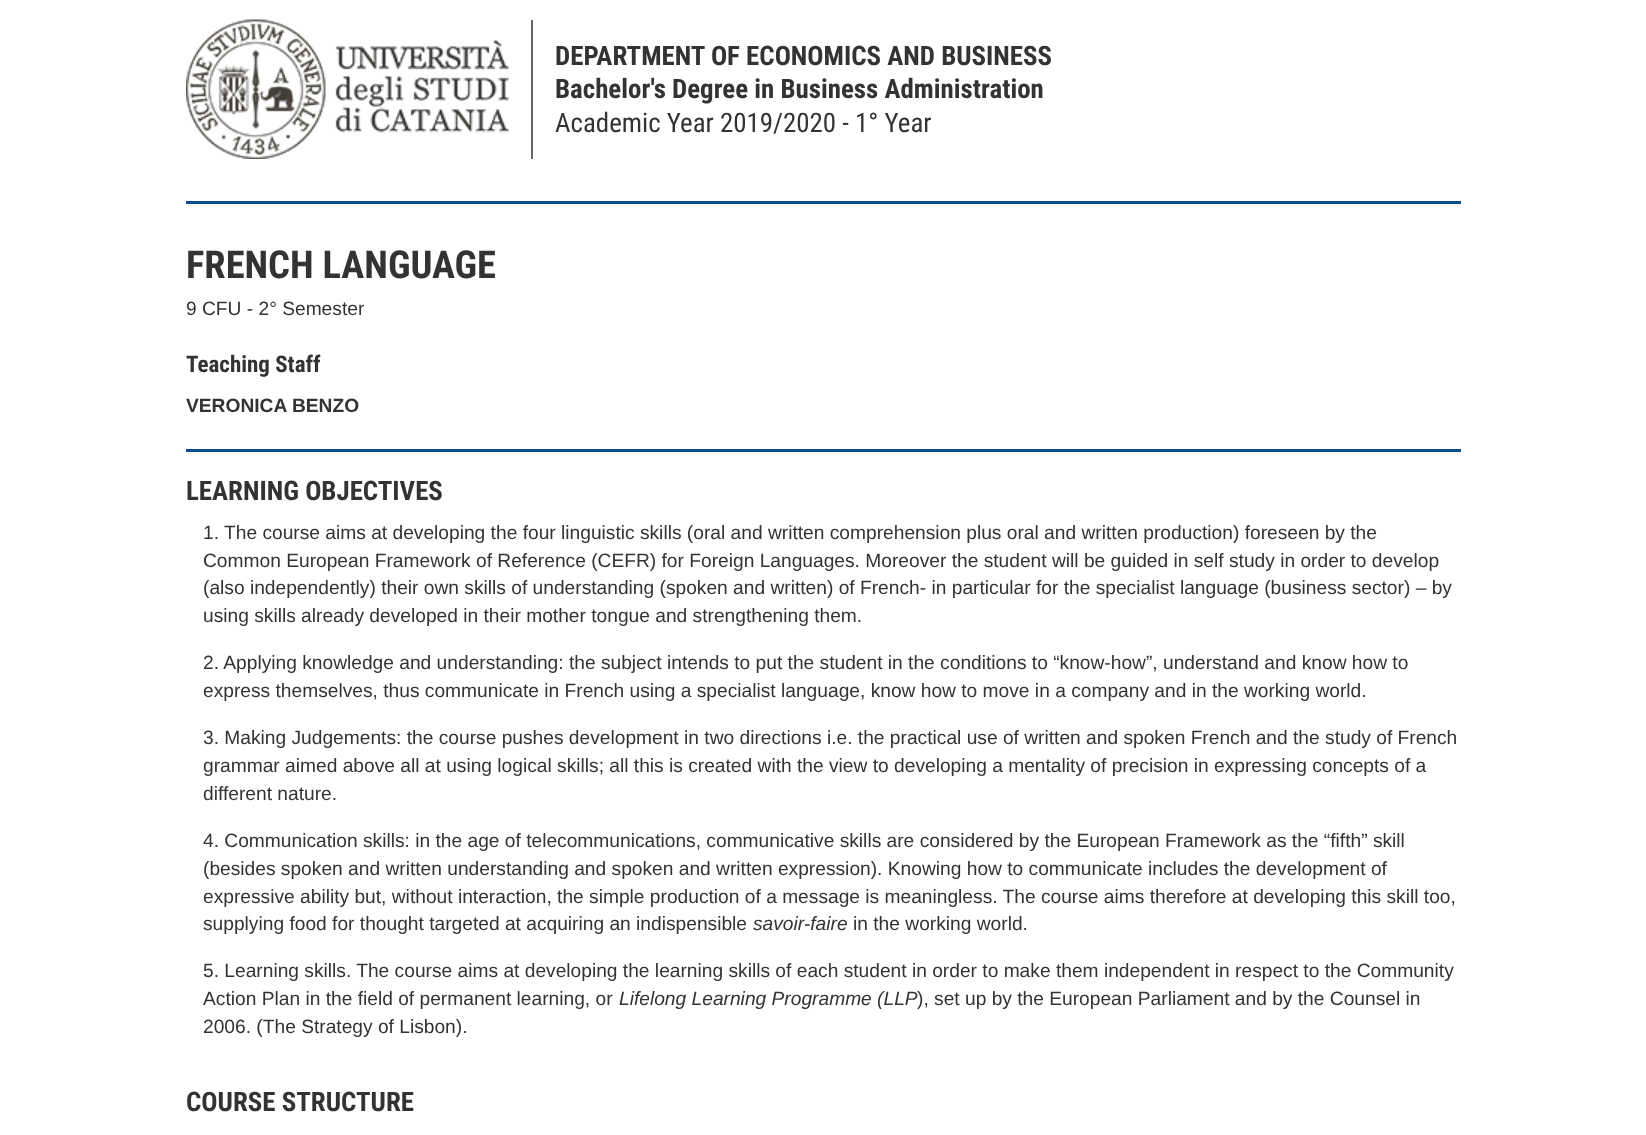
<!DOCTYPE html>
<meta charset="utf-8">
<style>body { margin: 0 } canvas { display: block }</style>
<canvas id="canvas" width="1646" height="1135"></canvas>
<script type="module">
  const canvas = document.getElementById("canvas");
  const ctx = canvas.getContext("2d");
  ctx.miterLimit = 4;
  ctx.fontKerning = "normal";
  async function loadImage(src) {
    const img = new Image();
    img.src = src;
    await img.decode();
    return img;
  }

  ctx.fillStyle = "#ffffff";
  ctx.fillRect(0, 0, 1646, 1135);
  ctx.fillStyle = "#666666";
  ctx.fillRect(531, 20, 2, 139);
  ctx.drawImage(await loadImage("img1.png"), 186, 19, 323, 140);
  ctx.font = "bold 26.9px Roboto Condensed";
  ctx.fillStyle = "#333333";
  ctx.fillText("DEPARTMENT OF ECONOMICS AND BUSINESS", 555, 65);
  ctx.fillText("Bachelor's Degree in Business Administration", 555, 98);
  ctx.font = "26.9px Roboto Condensed";
  ctx.fillText("Academic Year 2019/2020 - 1° Year", 555, 132);
  ctx.fillStyle = "#0e4c92";
  ctx.fillRect(186, 201, 1275, 3);
  ctx.font = "bold 38.5px Roboto Condensed";
  ctx.fillStyle = "#333333";
  ctx.fillText("FRENCH LANGUAGE", 186, 278);
  ctx.font = "19.2px Liberation Sans";
  ctx.fillText("9 CFU - 2° Semester", 186, 315);
  ctx.font = "bold 23px Roboto Condensed";
  ctx.fillText("Teaching Staff", 186, 372);
  ctx.font = "bold 19.2px Liberation Sans";
  ctx.fillText("VERONICA BENZO", 186, 412);
  ctx.fillStyle = "#0e4c92";
  ctx.fillRect(186, 449, 1275, 3);
  ctx.font = "bold 26.9px Roboto Condensed";
  ctx.fillStyle = "#333333";
  ctx.fillText("LEARNING OBJECTIVES", 186, 500);
  ctx.font = "19.2px Liberation Sans";
  ctx.fillText("1. The course aims at developing the four linguistic skills (oral and written comprehension plus oral and written production) foreseen by the", 203, 539);
  ctx.fillText("Common European Framework of Reference (CEFR) for Foreign Languages. Moreover the student will be guided in self study in order to develop", 203, 567);
  ctx.fillText("(also independently) their own skills of understanding (spoken and written) of French- in particular for the specialist language (business sector) – by", 203, 594);
  ctx.fillText("using skills already developed in their mother tongue and strengthening them.", 203, 622);
  ctx.fillText("2. Applying knowledge and understanding: the subject intends to put the student in the conditions to “know-how”, understand and know how to", 203, 669);
  ctx.fillText("express themselves, thus communicate in French using a specialist language, know how to move in a company and in the working world.", 203, 697);
  ctx.fillText("3. Making Judgements: the course pushes development in two directions i.e. the practical use of written and spoken French and the study of French", 203, 744);
  ctx.fillText("grammar aimed above all at using logical skills; all this is created with the view to developing a mentality of precision in expressing concepts of a", 203, 772);
  ctx.fillText("different nature.", 203, 800);
  ctx.fillText("4. Communication skills: in the age of telecommunications, communicative skills are considered by the European Framework as the “fifth” skill", 203, 847);
  ctx.fillText("(besides spoken and written understanding and spoken and written expression). Knowing how to communicate includes the development of", 203, 875);
  ctx.fillText("expressive ability but, without interaction, the simple production of a message is meaningless. The course aims therefore at developing this skill too,", 203, 903);
  ctx.fillText("supplying food for thought targeted at acquiring an indispensible", 203, 930);
  ctx.font = "italic 19.2px Liberation Sans";
  ctx.fillText("savoir-faire", 753, 930);
  ctx.font = "19.2px Liberation Sans";
  ctx.fillText("in the working world.", 853, 930);
  ctx.fillText("5. Learning skills. The course aims at developing the learning skills of each student in order to make them independent in respect to the Community", 203, 977);
  ctx.fillText("Action Plan in the field of permanent learning, or", 203, 1005);
  ctx.font = "italic 19.2px Liberation Sans";
  ctx.fillText("Lifelong Learning Programme (LLP", 619, 1005);
  ctx.font = "19.2px Liberation Sans";
  ctx.fillText("), set up by the European Parliament and by the Counsel in", 917, 1005);
  ctx.fillText("2006. (The Strategy of Lisbon).", 203, 1033);
  ctx.font = "bold 26.9px Roboto Condensed";
  ctx.fillText("COURSE STRUCTURE", 186, 1111);
</script>
